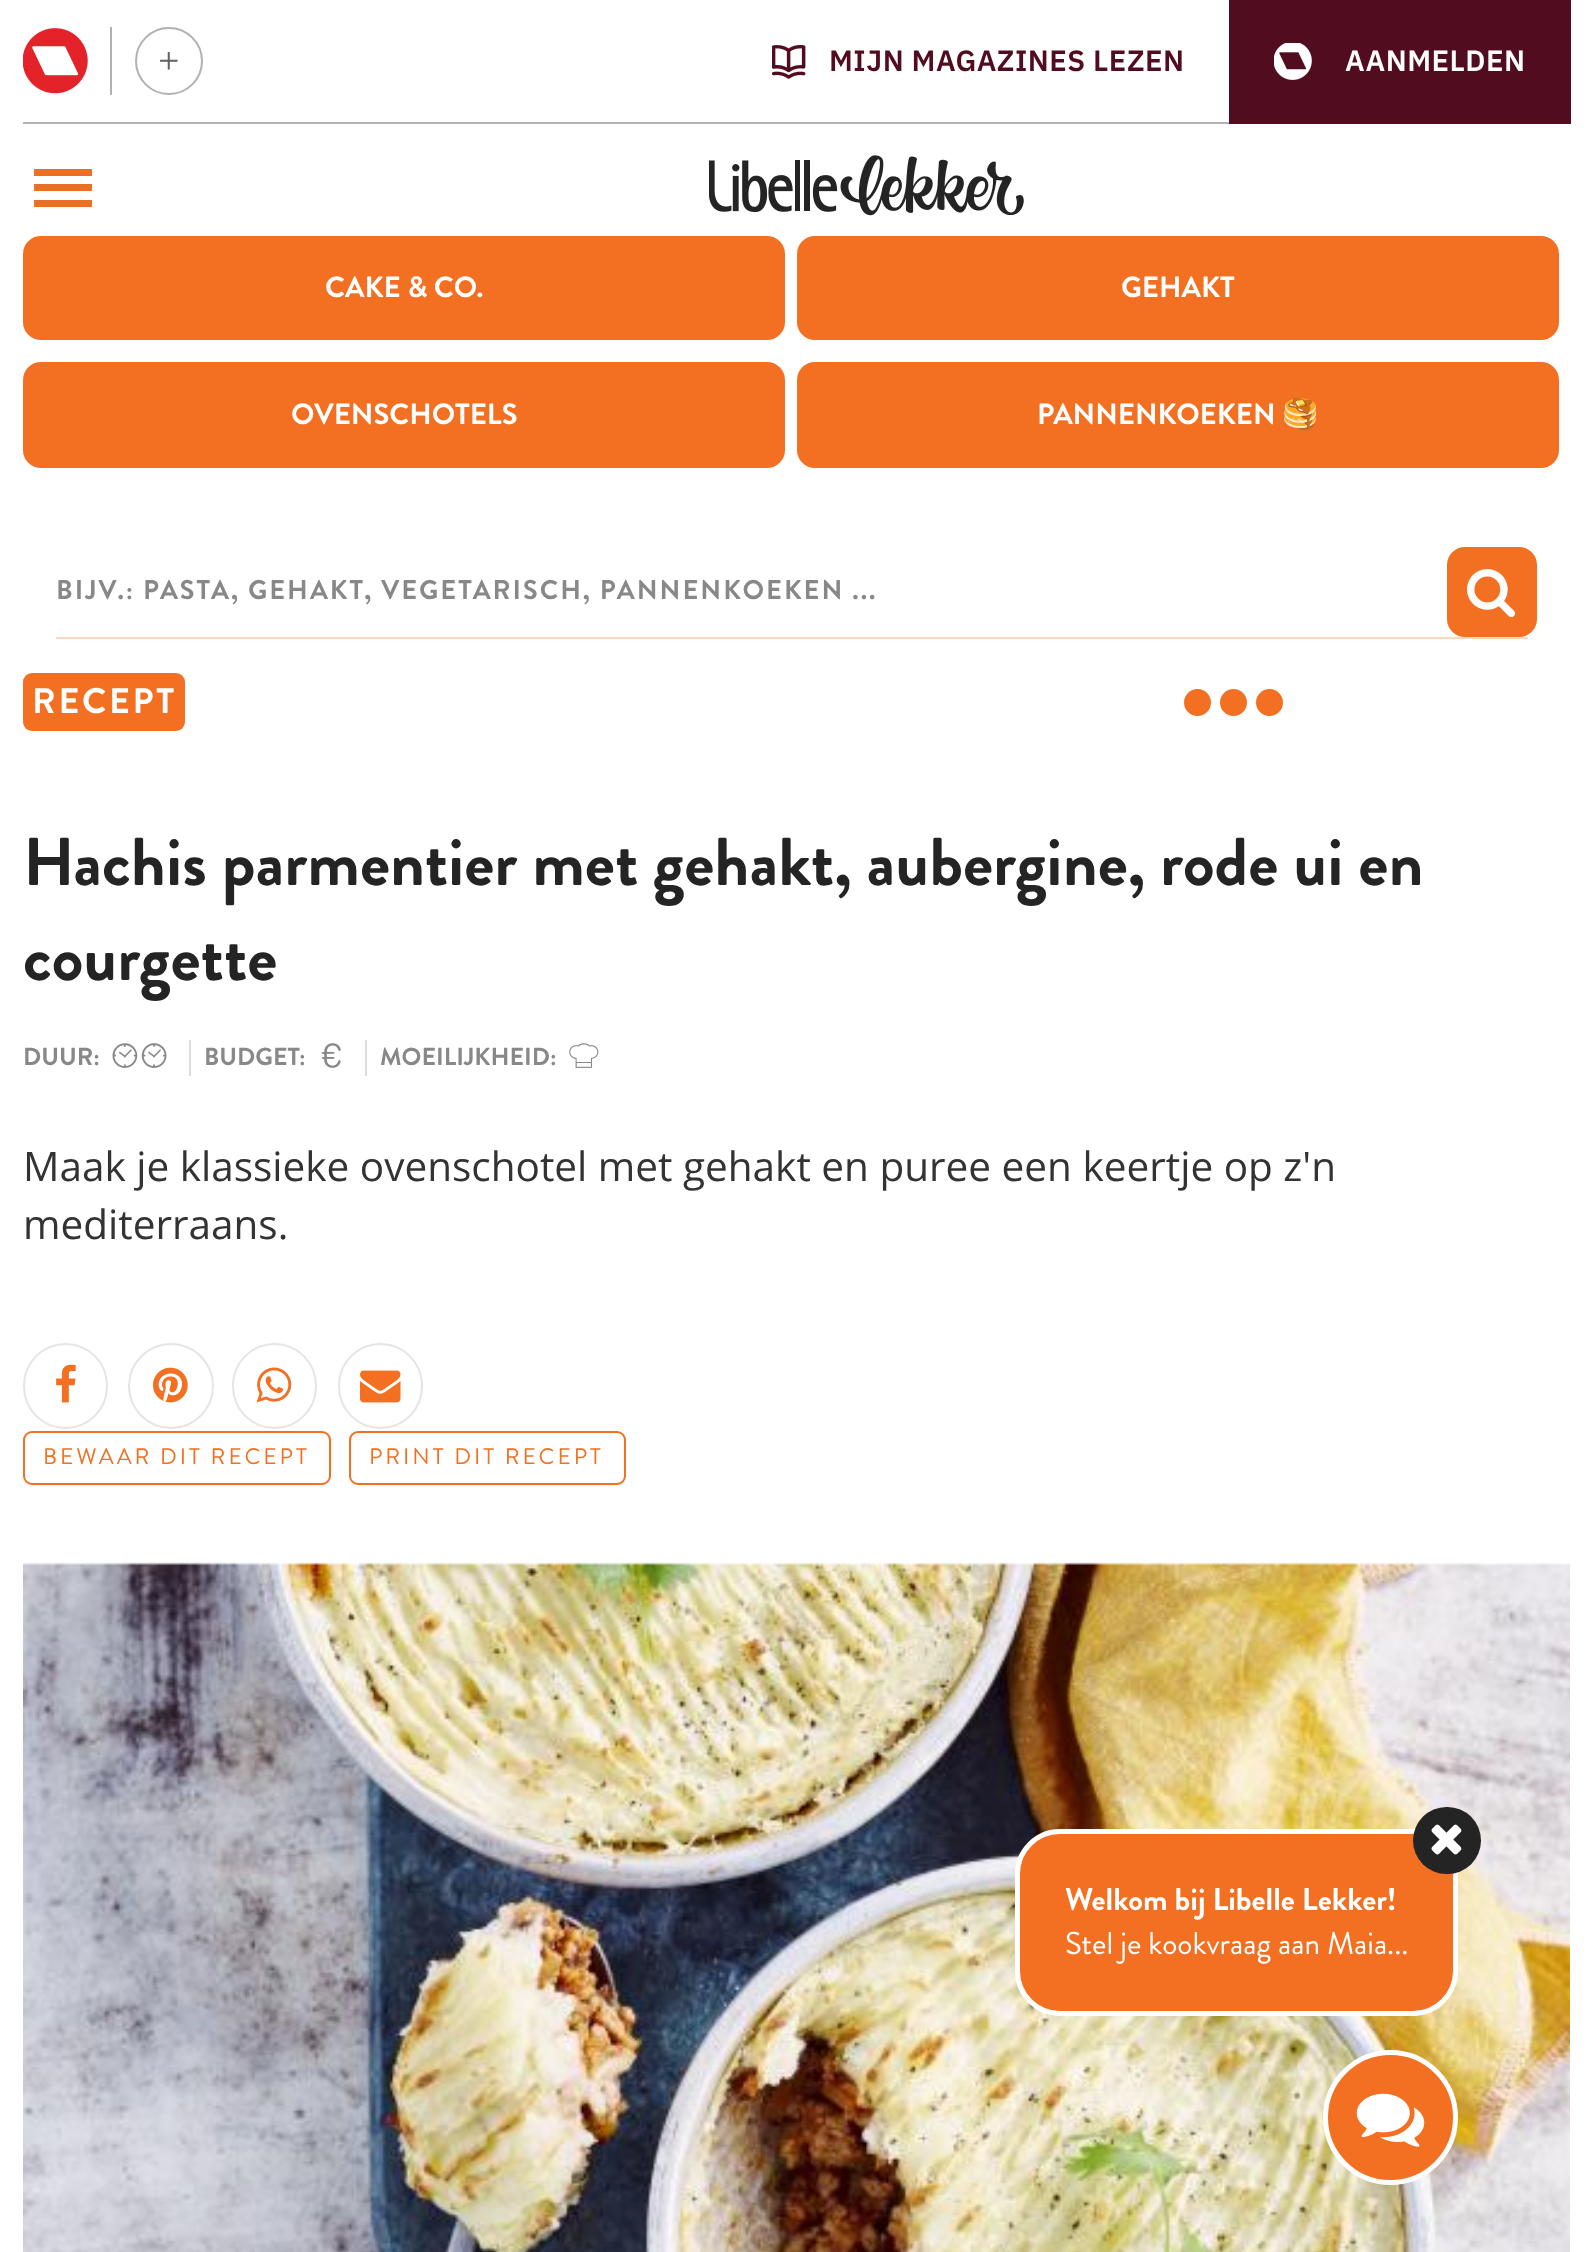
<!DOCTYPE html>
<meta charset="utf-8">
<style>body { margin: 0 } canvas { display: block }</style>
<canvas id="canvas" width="1592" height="2252"></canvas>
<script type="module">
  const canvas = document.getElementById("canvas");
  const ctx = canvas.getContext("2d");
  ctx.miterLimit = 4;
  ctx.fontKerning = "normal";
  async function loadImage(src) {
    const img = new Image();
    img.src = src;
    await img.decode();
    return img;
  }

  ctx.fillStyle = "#ffffff";
  ctx.fillRect(0, 0, 1592, 2252);
  ctx.fillStyle = "#b2b2b2";
  ctx.fillRect(23, 122, 1206, 2);
  ctx.fillStyle = "#b2b1b1";
  ctx.fillRect(110, 27, 2, 68);
  ctx.drawImage(await loadImage("img1.png"), 23, 28, 65, 66);
  ctx.beginPath();
  ctx.arc(169, 61, 33, 0, Math.PI * 2);
  ctx.strokeStyle = "#b2b1b1";
  ctx.lineWidth = 2;
  ctx.stroke();
  ctx.drawImage(await loadImage("img2.png"), 160, 52, 18, 18);
  ctx.drawImage(await loadImage("img3.png"), 772, 45, 34, 34);
  ctx.letterSpacing = "0.5px";
  ctx.font = "600 29.25px IBM Plex Sans";
  ctx.fillStyle = "#520c20";
  ctx.fillText("MIJN MAGAZINES LEZEN", 829, 71);
  ctx.fillRect(1229, 0, 342, 124);
  ctx.drawImage(await loadImage("img4.png"), 1274, 43, 38, 37);
  ctx.fillStyle = "#ffffff";
  ctx.fillText("AANMELDEN", 1345, 71);
  ctx.fillStyle = "#ec7023";
  ctx.beginPath();
  ctx.moveTo(34, 169);
  ctx.lineTo(92, 169);
  ctx.lineTo(92, 176);
  ctx.lineTo(34, 176);
  ctx.closePath();
  ctx.moveTo(34, 184);
  ctx.lineTo(92, 184);
  ctx.lineTo(92, 191);
  ctx.lineTo(34, 191);
  ctx.closePath();
  ctx.moveTo(34, 200);
  ctx.lineTo(92, 200);
  ctx.lineTo(92, 207);
  ctx.lineTo(34, 207);
  ctx.closePath();
  ctx.fill();
  ctx.drawImage(await loadImage("img5.png"), 709, 155, 315, 61);
  ctx.fillStyle = "#f36f21";
  ctx.beginPath();
  ctx.roundRect(23, 236, 762, 104, 18);
  ctx.fill();
  ctx.letterSpacing = "0px";
  ctx.font = "bold 29.25px Brandon Grotesque";
  ctx.fillStyle = "#ffffff";
  ctx.fillText("CAKE & CO.", 325, 297);
  ctx.fillStyle = "#f36f21";
  ctx.beginPath();
  ctx.roundRect(797, 236, 762, 104, 18);
  ctx.fill();
  ctx.fillStyle = "#ffffff";
  ctx.fillText("GEHAKT", 1121, 297);
  ctx.fillStyle = "#f36f21";
  ctx.beginPath();
  ctx.roundRect(23, 362, 762, 106, 18);
  ctx.fill();
  ctx.fillStyle = "#ffffff";
  ctx.fillText("OVENSCHOTELS", 291, 424);
  ctx.fillStyle = "#f36f21";
  ctx.beginPath();
  ctx.roundRect(797, 362, 762, 106, 18);
  ctx.fill();
  ctx.fillStyle = "#ffffff";
  ctx.fillText("PANNENKOEKEN", 1037, 424);
  ctx.font = "bold 29.25px Noto Color Emoji";
  ctx.fillText("🥞", 1282, 424);
  ctx.fillStyle = "#ffd7bd";
  ctx.fillRect(56, 637, 1472, 2);
  ctx.letterSpacing = "2.02px";
  ctx.font = "bold 27px Brandon Grotesque";
  ctx.fillStyle = "#888888";
  ctx.fillText("BIJV.: PASTA, GEHAKT, VEGETARISCH, PANNENKOEKEN ...", 56, 599);
  ctx.fillStyle = "#f36f21";
  ctx.beginPath();
  ctx.roundRect(1448, 548, 88, 88, 17);
  ctx.fill();
  ctx.strokeStyle = "#f36f21";
  ctx.stroke();
  ctx.drawImage(await loadImage("img6.png"), 1467, 569, 48, 49);
  ctx.beginPath();
  ctx.roundRect(23, 673, 162, 58, 9);
  ctx.fill();
  ctx.letterSpacing = "2.75px";
  ctx.font = "bold 35.5px Brandon Grotesque";
  ctx.fillStyle = "#ffffff";
  ctx.fillText("RECEPT", 32, 713);
  ctx.fillStyle = "#f36f21";
  ctx.beginPath();
  ctx.arc(1197.5, 702.5, 13.5, 0, Math.PI * 2);
  ctx.fill();
  ctx.beginPath();
  ctx.arc(1233.5, 702.5, 13.5, 0, Math.PI * 2);
  ctx.fill();
  ctx.beginPath();
  ctx.arc(1269.5, 702.5, 13.5, 0, Math.PI * 2);
  ctx.fill();
  ctx.letterSpacing = "0px";
  ctx.font = "bold 67.5px Brandon Grotesque";
  ctx.fillStyle = "#242424";
  ctx.fillText("Hachis parmentier met gehakt, aubergine, rode ui en", 23, 885);
  ctx.fillText("courgette", 23, 980);
  ctx.font = "bold 24.75px Brandon Grotesque";
  ctx.fillStyle = "#888888";
  ctx.fillText("DUUR:", 23, 1065);
  ctx.drawImage(await loadImage("img7.png"), 112, 1043, 26, 25);
  ctx.drawImage(await loadImage("img8.png"), 141, 1043, 26, 25);
  ctx.fillStyle = "#dbdbdb";
  ctx.fillRect(189, 1040, 2, 36);
  ctx.fillStyle = "#888888";
  ctx.fillText("BUDGET:", 204, 1065);
  ctx.drawImage(await loadImage("img9.png"), 321, 1043, 20, 25);
  ctx.fillStyle = "#dbdbdb";
  ctx.fillRect(365, 1040, 2, 36);
  ctx.fillStyle = "#888888";
  ctx.fillText("MOEILIJKHEID:", 380, 1065);
  ctx.drawImage(await loadImage("img10.png"), 569, 1043, 30, 25);
  ctx.font = "40.5px Open Sans";
  ctx.fillStyle = "#333333";
  ctx.fillText("Maak je klassieke ovenschotel met gehakt en puree een keertje op z'n", 23, 1181);
  ctx.fillText("mediterraans.", 23, 1239);
  ctx.beginPath();
  ctx.roundRect(24, 1344, 83, 84, 41.5);
  ctx.strokeStyle = "#e6e5e5";
  ctx.stroke();
  ctx.drawImage(await loadImage("img11.png"), 56, 1364, 20, 39);
  ctx.beginPath();
  ctx.arc(171, 1386, 42, 0, Math.PI * 2);
  ctx.stroke();
  ctx.drawImage(await loadImage("img12.png"), 153, 1367, 35, 36);
  ctx.beginPath();
  ctx.roundRect(233, 1344, 83, 84, 41.5);
  ctx.stroke();
  ctx.drawImage(await loadImage("img13.png"), 256, 1367, 36, 36);
  ctx.beginPath();
  ctx.roundRect(339, 1344, 83, 84, 41.5);
  ctx.stroke();
  ctx.drawImage(await loadImage("img14.png"), 360, 1370, 41, 33);
  ctx.beginPath();
  ctx.roundRect(24, 1432, 306, 52, 8);
  ctx.strokeStyle = "#f36f21";
  ctx.stroke();
  ctx.letterSpacing = "2.9px";
  ctx.font = "22.5px Brandon Grotesque";
  ctx.fillStyle = "#f36f21";
  ctx.fillText("BEWAAR DIT RECEPT", 43, 1464);
  ctx.beginPath();
  ctx.roundRect(350, 1432, 275, 52, 8);
  ctx.stroke();
  ctx.fillText("PRINT DIT RECEPT", 369, 1464);
  ctx.drawImage(await loadImage("img15.png"), 23, 1562, 1547, 690);
  ctx.beginPath();
  ctx.roundRect(1017.5, 1831.5, 438, 182, 42.5);
  ctx.fill();
  ctx.strokeStyle = "#ffffff";
  ctx.lineWidth = 5;
  ctx.stroke();
  ctx.fillStyle = "#242424";
  ctx.beginPath();
  ctx.roundRect(1413, 1807, 68, 67, 33.5);
  ctx.fill();
  ctx.drawImage(await loadImage("img16.png"), 1431, 1824, 31, 31);
  ctx.letterSpacing = "0px";
  ctx.font = "bold 31.5px Brandon Grotesque";
  ctx.fillStyle = "#ffffff";
  ctx.fillText("Welkom bij Libelle Lekker!", 1065, 1910);
  ctx.font = "31.5px Brandon Grotesque";
  ctx.fillText("Stel je kookvraag aan Maia...", 1065, 1954);
  ctx.fillStyle = "#f36f21";
  ctx.beginPath();
  ctx.arc(1390.5, 2117.5, 65, 0, Math.PI * 2);
  ctx.fill();
  ctx.stroke();
  ctx.drawImage(await loadImage("img17.png"), 1356, 2093, 69, 54);
</script>
